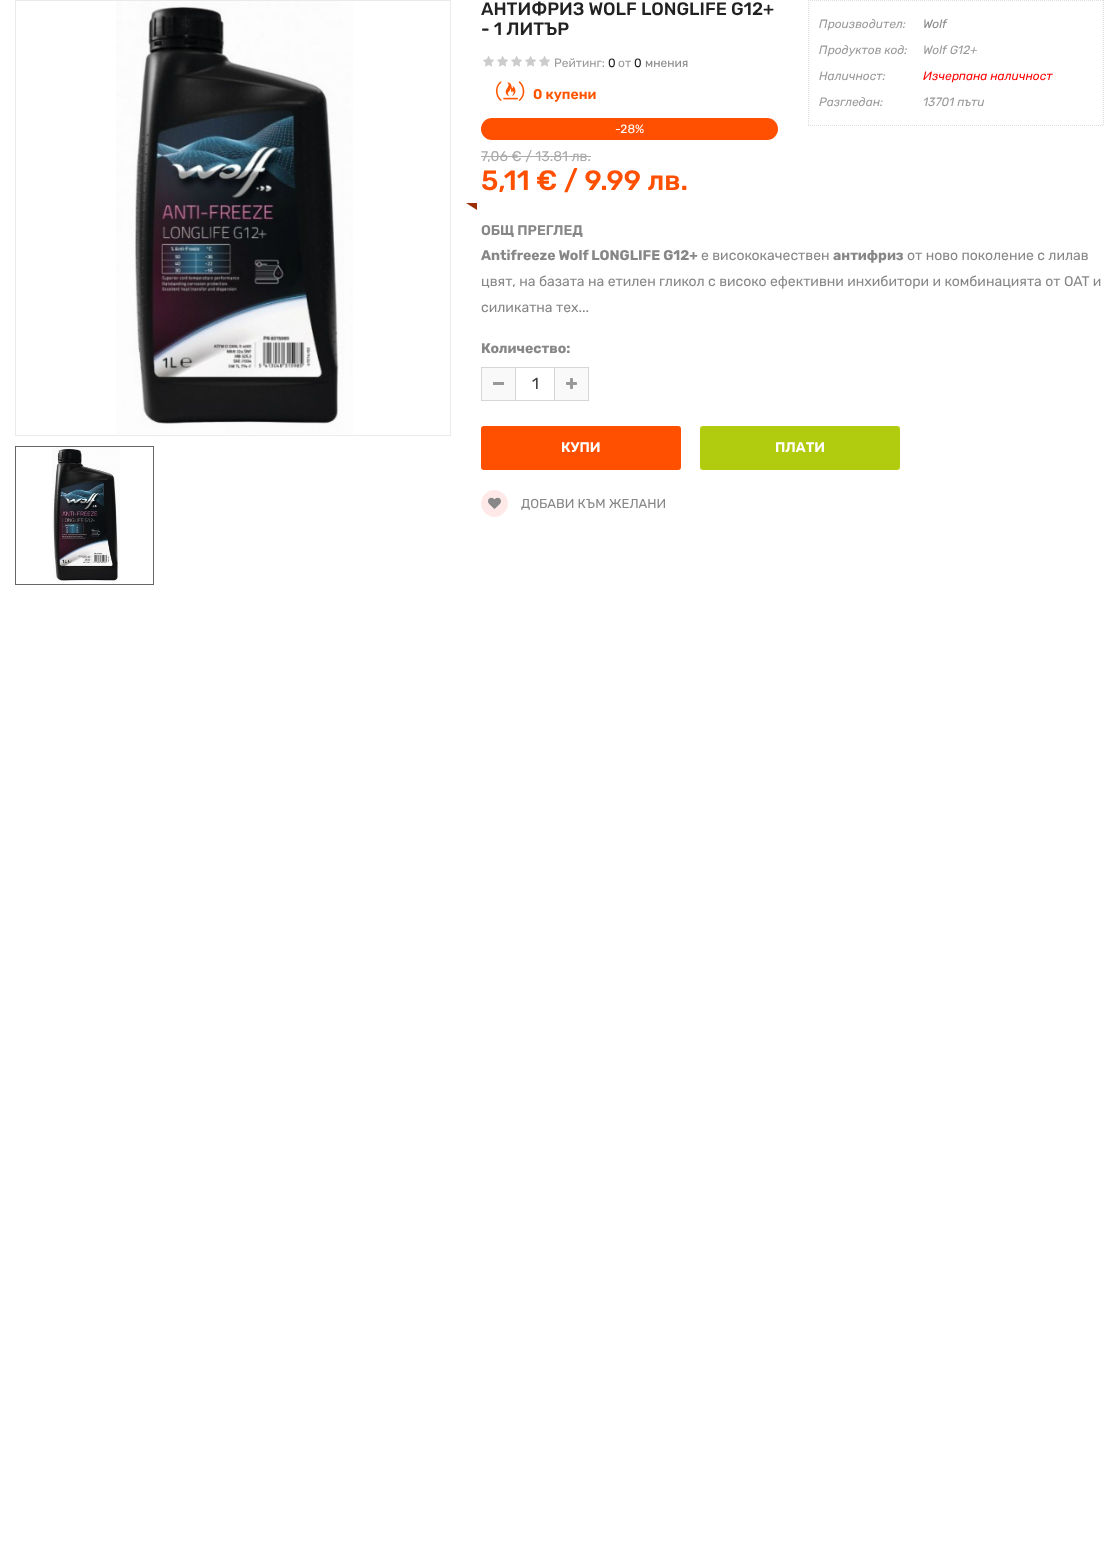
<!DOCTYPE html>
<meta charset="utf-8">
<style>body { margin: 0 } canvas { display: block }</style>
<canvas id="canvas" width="1119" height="1548"></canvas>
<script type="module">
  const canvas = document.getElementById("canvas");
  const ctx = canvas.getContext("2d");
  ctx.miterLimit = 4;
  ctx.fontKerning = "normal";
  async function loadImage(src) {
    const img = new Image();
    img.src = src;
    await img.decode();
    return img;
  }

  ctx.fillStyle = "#ffffff";
  ctx.fillRect(0, 0, 1119, 1548);
  ctx.strokeStyle = "#eaeaea";
  ctx.strokeRect(15.5, 0.5, 435, 435);
  ctx.drawImage(await loadImage("img1.png"), 116, 1, 237, 433);
  ctx.strokeStyle = "#666666";
  ctx.strokeRect(15.5, 446.5, 138, 138);
  ctx.drawImage(await loadImage("img2.png"), 52, 447, 68, 134);
  ctx.font = "500 18px Rubik";
  ctx.fillStyle = "#222222";
  ctx.fillText("АНТИФРИЗ WOLF LONGLIFE G12+", 481, 15);
  ctx.fillText("- 1 ЛИТЪР", 481, 35);
  ctx.drawImage(await loadImage("img3.png"), 483, 56, 11, 11);
  ctx.drawImage(await loadImage("img3.png"), 497, 56, 11, 11);
  ctx.drawImage(await loadImage("img3.png"), 511, 56, 11, 11);
  ctx.drawImage(await loadImage("img3.png"), 525, 56, 11, 11);
  ctx.drawImage(await loadImage("img3.png"), 539, 56, 11, 11);
  ctx.font = "12px Rubik";
  ctx.fillStyle = "#999999";
  ctx.fillText("Рейтинг:", 554, 67);
  ctx.fillStyle = "#222222";
  ctx.fillText("0", 608, 67);
  ctx.fillStyle = "#999999";
  ctx.fillText("от", 618, 67);
  ctx.fillStyle = "#222222";
  ctx.fillText("0", 634, 67);
  ctx.fillStyle = "#878787";
  ctx.fillText("мнения", 645, 67);
  ctx.drawImage(await loadImage("img4.png"), 496, 81, 29, 20);
  ctx.font = "600 14px Rubik";
  ctx.fillStyle = "#ff5500";
  ctx.fillText("0 купени", 533, 99);
  ctx.fillStyle = "#ff4f00";
  ctx.beginPath();
  ctx.roundRect(481, 118, 297, 22, 11);
  ctx.fill();
  ctx.font = "12px Rubik";
  ctx.fillStyle = "#ffffff";
  ctx.fillText("-28%", 615, 133);
  ctx.fillStyle = "#992f00";
  ctx.beginPath();
  ctx.moveTo(477, 203);
  ctx.lineTo(477, 210);
  ctx.lineTo(466, 203);
  ctx.closePath();
  ctx.fill();
  ctx.font = "14px Rubik";
  ctx.fillStyle = "#aaaaaa";
  ctx.fillText("7,06 € / 13.81 лв.", 481, 161);
  ctx.fillRect(481, 156, 110, 1);
  ctx.font = "500 28px Rubik";
  ctx.fillStyle = "#ff4f00";
  ctx.fillText("5,11 € / 9.99 лв.", 481, 190);
  ctx.beginPath();
  ctx.moveTo(808, 0.5);
  ctx.lineTo(1104, 0.5);
  ctx.strokeStyle = "#dddddd";
  ctx.setLineDash([1, 1]);
  ctx.stroke();
  ctx.beginPath();
  ctx.moveTo(1103.5, 0);
  ctx.lineTo(1103.5, 126);
  ctx.stroke();
  ctx.beginPath();
  ctx.moveTo(808, 125.5);
  ctx.lineTo(1104, 125.5);
  ctx.stroke();
  ctx.beginPath();
  ctx.moveTo(808.5, 0);
  ctx.lineTo(808.5, 126);
  ctx.stroke();
  ctx.font = "italic 300 12px Rubik";
  ctx.fillStyle = "#999999";
  ctx.fillText("Производител:", 819, 28);
  ctx.fillStyle = "#878787";
  ctx.fillText("Wolf", 923, 28);
  ctx.fillStyle = "#999999";
  ctx.fillText("Продуктов код:", 819, 54);
  ctx.fillText("Wolf G12+", 923, 54);
  ctx.fillText("Наличност:", 819, 80);
  ctx.fillStyle = "#ff0000";
  ctx.fillText("Изчерпана наличност", 923, 80);
  ctx.fillStyle = "#999999";
  ctx.fillText("Разгледан:", 819, 106);
  ctx.fillText("13701 пъти", 923, 106);
  ctx.font = "600 14px Rubik";
  ctx.fillStyle = "#878787";
  ctx.fillText("ОБЩ ПРЕГЛЕД", 481, 235);
  ctx.font = "bold 14px Rubik";
  ctx.fillText("Antifreeze Wolf LONGLIFE G12+", 481, 260);
  ctx.font = "14px Rubik";
  ctx.fillText("е висококачествен", 701, 260);
  ctx.font = "bold 14px Rubik";
  ctx.fillText("антифриз", 833, 260);
  ctx.font = "14px Rubik";
  ctx.fillText("от ново поколение с лилав", 907, 260);
  ctx.fillText("цвят, на базата на етилен гликол с високо ефективни инхибитори и комбинацията от OAT и", 481, 286);
  ctx.fillText("силикатна тех...", 481, 312);
  ctx.font = "bold 14px Rubik";
  ctx.fillText("Количество:", 481, 353);
  ctx.strokeStyle = "#d6d6d6";
  ctx.setLineDash([]);
  ctx.strokeRect(481.5, 367.5, 107, 33);
  ctx.fillStyle = "#f9f9f9";
  ctx.fillRect(482, 368, 33, 32);
  ctx.fillStyle = "#999999";
  ctx.fillRect(493, 382, 11, 3);
  ctx.fillStyle = "#d6d6d6";
  ctx.fillRect(554, 368, 1, 32);
  ctx.fillRect(515, 368, 1, 32);
  ctx.font = "16px Rubik";
  ctx.fillStyle = "#3d3d3d";
  ctx.fillText("1", 532, 389);
  ctx.fillStyle = "#f9f9f9";
  ctx.fillRect(555, 368, 33, 32);
  ctx.drawImage(await loadImage("img5.png"), 566, 378, 11, 11);
  ctx.fillStyle = "#ff4f00";
  ctx.beginPath();
  ctx.roundRect(481, 426, 200, 44, 3);
  ctx.fill();
  ctx.font = "600 14px Rubik";
  ctx.fillStyle = "#ffffff";
  ctx.fillText("КУПИ", 561, 452);
  ctx.fillStyle = "#b1cc0e";
  ctx.beginPath();
  ctx.roundRect(700, 426, 200, 44, 3);
  ctx.fill();
  ctx.fillStyle = "#ffffff";
  ctx.fillText("ПЛАТИ", 775, 452);
  ctx.fillStyle = "#ffe8e8";
  ctx.beginPath();
  ctx.arc(494.5, 503.5, 13, 0, Math.PI * 2);
  ctx.fill();
  ctx.strokeStyle = "#ffe8e8";
  ctx.stroke();
  ctx.drawImage(await loadImage("img6.png"), 488, 497, 13, 12);
  ctx.font = "13px Rubik";
  ctx.fillStyle = "#878787";
  ctx.fillText("ДОБАВИ КЪМ ЖЕЛАНИ", 521, 508);
</script>
